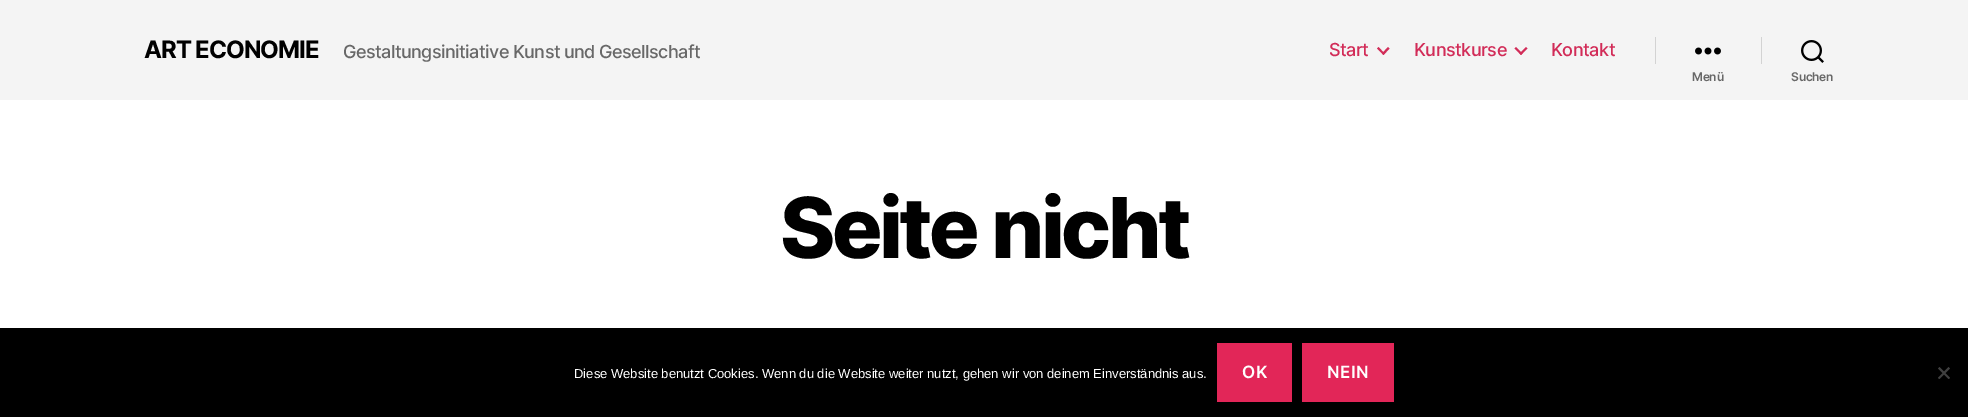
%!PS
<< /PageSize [1968 417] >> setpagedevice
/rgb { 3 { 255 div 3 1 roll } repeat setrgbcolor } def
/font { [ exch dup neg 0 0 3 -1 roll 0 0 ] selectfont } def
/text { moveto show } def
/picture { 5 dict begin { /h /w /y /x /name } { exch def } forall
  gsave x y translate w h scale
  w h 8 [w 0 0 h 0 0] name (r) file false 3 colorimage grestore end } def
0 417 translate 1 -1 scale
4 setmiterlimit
255 255 255 rgb
0 0 1968 417 rectfill
244 244 244 rgb
0 0 1968 100 rectfill
210 44 88 rgb
1377 48.5 moveto 1.5 -1.5 rlineto 6 6.5 rlineto -1 1.5 rlineto closepath fill
1382 53.5 moveto 6 -6.5 rlineto 1.5 1.5 rlineto -6 6.5 rlineto closepath fill
1514.5 48.5 moveto 1.5 -1.5 rlineto 6.5 6.5 rlineto -1.5 1.5 rlineto closepath fill
1519.5 53.5 moveto 6.5 -6.5 rlineto 1.5 1.5 rlineto -6.5 6.5 rlineto closepath fill
211 211 211 rgb
1655 37 1 27 rectfill
(img_01.rgb) 1695 47 26 8 picture
1761 37 1 27 rectfill
(img_02.rgb) 1801 40 23 23 picture
0 0 0 rgb
0 328 1968 89 rectfill
226 38 88 rgb
1217 343 75 59 rectfill
1302 343 92 59 rectfill
64 64 64 rgb
1948.5 367 moveto 1.5 1.5 rlineto -10.5 10.5 rlineto -1.5 -1 rlineto closepath fill
1938 368.5 moveto 1.5 -1.5 rlineto 10.5 11 rlineto -1.5 1 rlineto closepath fill
/Inter-Bold 24 font
0 0 0 rgb
144 58 moveto -1 0 (ART ECONOMIE) ashow
/Inter-Medium 18 font
104 104 104 rgb
343 58 moveto -0.55 0 (Gestaltungsinitiative Kunst und Gesellschaft) ashow
210 44 88 rgb
1329 56 moveto -0.5 0 (Start) ashow
1414 56 moveto -0.5 0 (Kunstkurse) ashow
1551 56 moveto -0.5 0 (Kontakt) ashow
/Inter-SemiBold 12 font
104 104 104 rgb
1692 81 moveto -0.25 0 (Menü) ashow
1791 81 moveto -0.25 0 (Suchen) ashow
/Inter-ExtraBold 84 font
0 0 0 rgb
780 258 moveto -3.5 0 (Seite nicht) ashow
/LiberationSans-Regular 13 font
255 255 255 rgb
(Diese Website benutzt Cookies. Wenn du die Website weiter nutzt, gehen wir von deinem Einverständnis aus.) 574 378 text
/Inter-SemiBold 17 font
1242 378 moveto 0.5 0 (OK) ashow
1327 378 moveto 0.5 0 (NEIN) ashow
showpage
